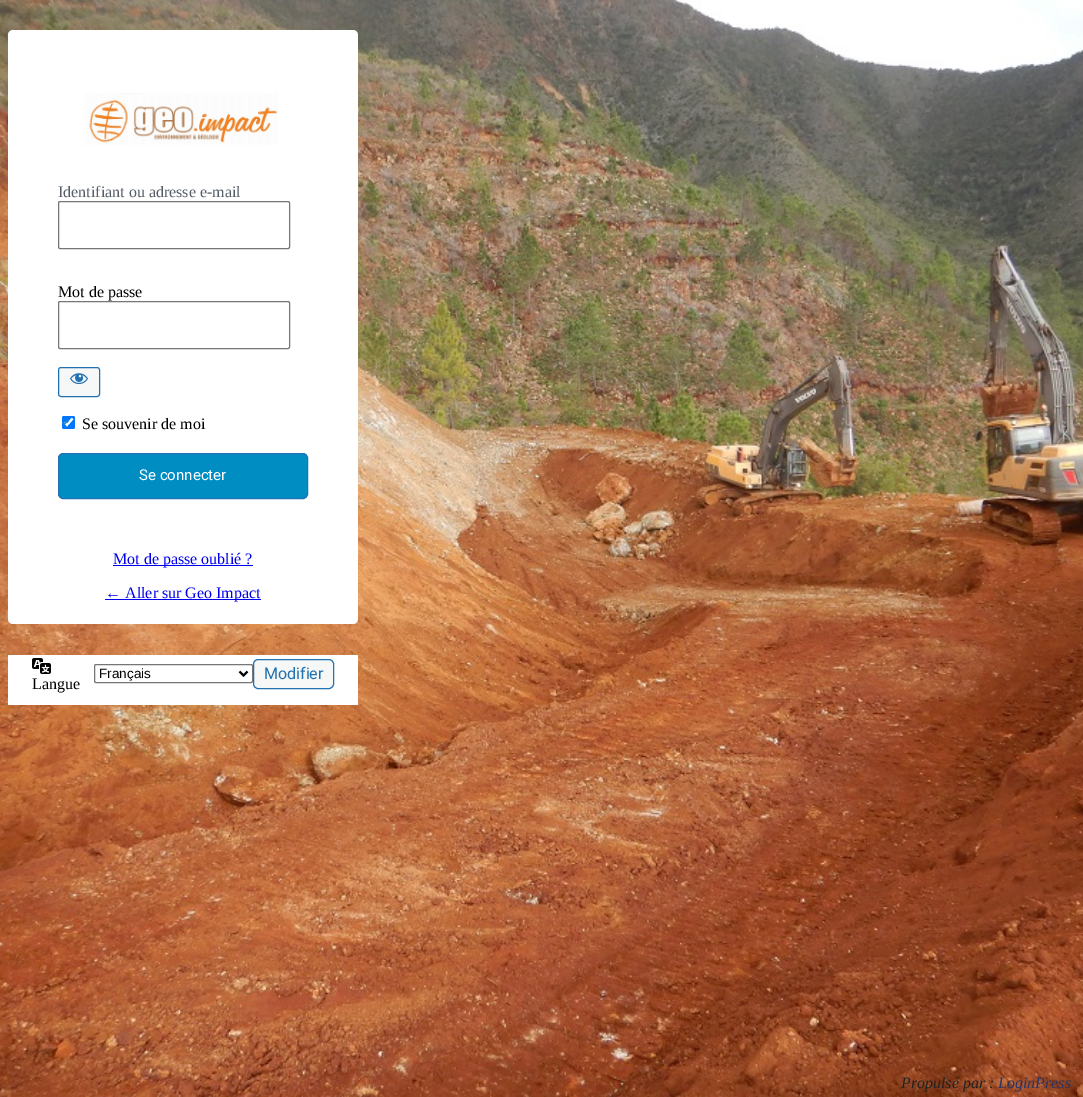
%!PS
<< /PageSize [1083 1097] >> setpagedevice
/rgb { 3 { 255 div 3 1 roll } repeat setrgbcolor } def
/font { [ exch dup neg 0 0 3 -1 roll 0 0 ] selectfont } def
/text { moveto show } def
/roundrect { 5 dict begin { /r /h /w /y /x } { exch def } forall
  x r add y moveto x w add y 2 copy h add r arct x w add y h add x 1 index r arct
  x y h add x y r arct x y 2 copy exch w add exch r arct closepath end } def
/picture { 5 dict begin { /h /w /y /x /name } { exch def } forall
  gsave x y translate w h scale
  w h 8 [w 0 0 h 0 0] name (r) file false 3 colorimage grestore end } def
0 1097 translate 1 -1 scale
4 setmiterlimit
255 255 255 rgb
0 0 1083 1097 rectfill
(img_01.rgb) 0 0 1083 1097 picture
8 30 350 594 5 roundrect fill
(img_02.rgb) 84 93 194 52 picture
118 118 118 rgb
58.5 201.5 231 47 1.5 roundrect stroke
58.5 301.5 231 47 1.5 roundrect stroke
246 247 247 rgb
58.5 367.5 41 29 2.5 roundrect gsave fill grestore
34 113 177 rgb
stroke
(img_03.rgb) 70 373 18 12 picture
0 117 255 rgb
62 416 13 13 2 roundrect fill
255 255 255 rgb
2.1 setlinewidth
64.5 422.5 moveto 2.5 2.5 rlineto 5.5 -6.5 rlineto stroke
(img_04.rgb) 61 419 8 7 picture
0 142 194 rgb
58.5 453.5 249 45 4.5 roundrect gsave fill grestore
34 113 177 rgb
1 setlinewidth
stroke
0 0 238 rgb
113 565 140 1 rectfill
105 599 156 1 rectfill
255 255 255 rgb
8 655 350 50 rectfill
118 118 118 rgb
94.5 664.5 158 18 1.5 roundrect stroke
0 0 0 rgb
2 setlinewidth
239.5 671.5 moveto 4 4 rlineto 4 -4 rlineto stroke
246 247 247 rgb
253.5 659.5 80 29 4.5 roundrect gsave fill grestore
34 113 177 rgb
1 setlinewidth
stroke
(img_05.rgb) 32 658 19 16 picture
/LiberationSerif-Regular 16 font
85 93 102 rgb
(Identifiant ou adresse e-mail) 58 197 text
0 0 0 rgb
(Mot de passe) 58 297 text
(Se souvenir de moi) 82 429 text
/Roboto-Regular 15 font
255 255 255 rgb
(Se connecter) 139 480 text
/LiberationSerif-Regular 16 font
0 0 238 rgb
(Mot de passe oublié ?) 113 564 text
(← Aller sur Geo Impact) 105 598 text
/LiberationSans-Regular 13.5 font
0 0 0 rgb
(Français) 99 678 text
/Roboto-Regular 16 font
34 113 177 rgb
(Modifier) 264 679 text
/LiberationSerif-Regular 16 font
0 0 0 rgb
(Langue) 32 689 text
/LiberationSerif-Italic 16 font
34 34 34 rgb
(Propulsé par :) 901 1088 text
38 52 102 rgb
(LoginPress) 998 1088 text
showpage
